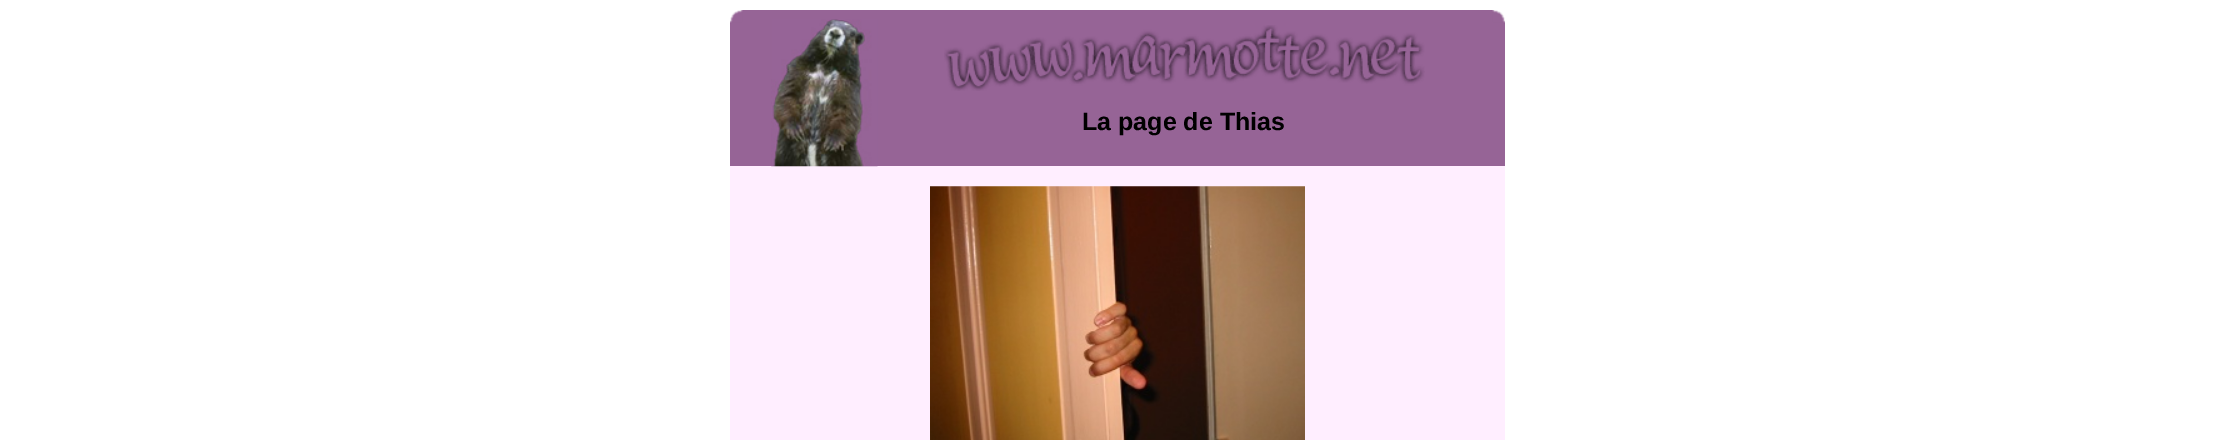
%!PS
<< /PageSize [2235 440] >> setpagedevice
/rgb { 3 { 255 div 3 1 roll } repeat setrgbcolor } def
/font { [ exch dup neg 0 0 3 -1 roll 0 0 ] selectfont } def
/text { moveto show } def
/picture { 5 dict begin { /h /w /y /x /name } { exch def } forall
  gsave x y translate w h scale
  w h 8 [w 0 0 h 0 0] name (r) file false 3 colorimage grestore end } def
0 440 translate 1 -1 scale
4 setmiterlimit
255 255 255 rgb
0 0 2235 440 rectfill
255 238 255 rgb
730 166 775 274 rectfill
150 100 150 rgb
730 10 775 156 rectfill
(img_01.rgb) 730 10 13 13 picture
(img_02.rgb) 1492 10 13 13 picture
(img_03.rgb) 771 19 107 148 picture
(img_04.rgb) 944 25 481 66 picture
(img_05.rgb) 930 186 375 254 picture
/LiberationSans-Bold 25 font
0 0 0 rgb
(La page de Thias) 1082 130 text
showpage
